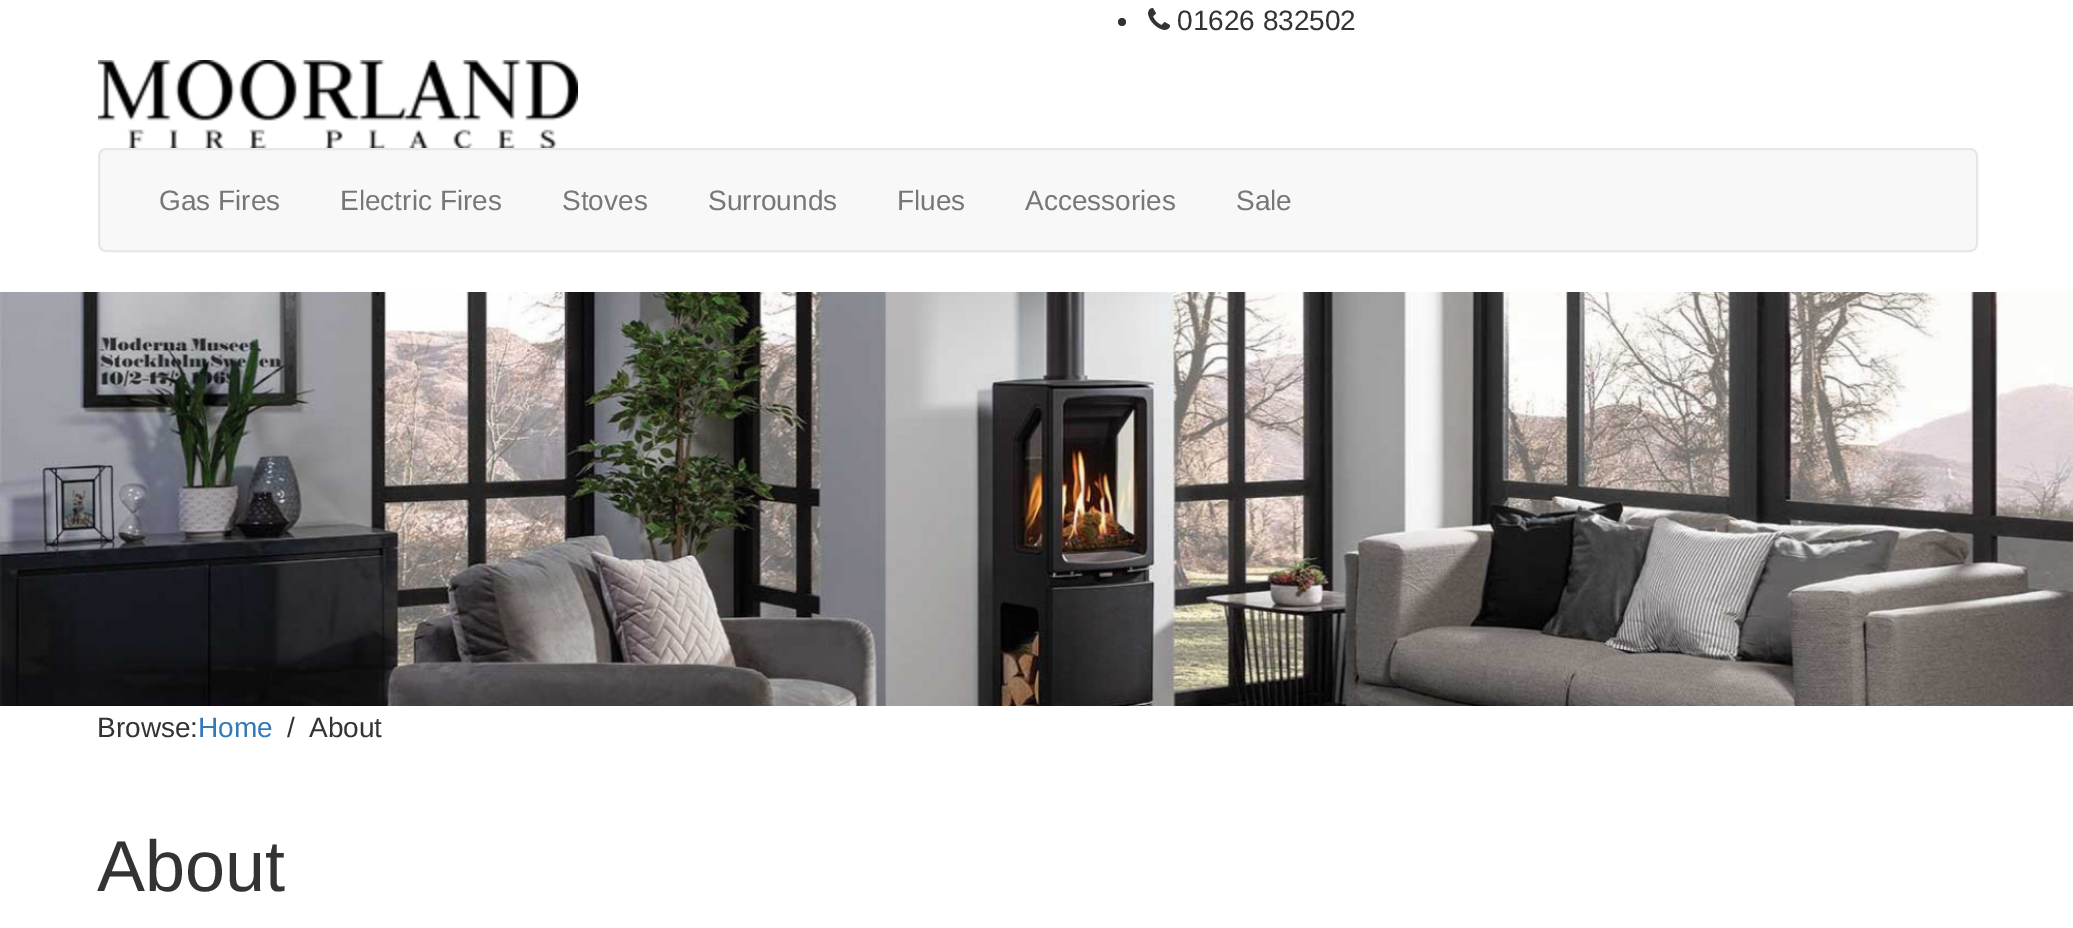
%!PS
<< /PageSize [2073 928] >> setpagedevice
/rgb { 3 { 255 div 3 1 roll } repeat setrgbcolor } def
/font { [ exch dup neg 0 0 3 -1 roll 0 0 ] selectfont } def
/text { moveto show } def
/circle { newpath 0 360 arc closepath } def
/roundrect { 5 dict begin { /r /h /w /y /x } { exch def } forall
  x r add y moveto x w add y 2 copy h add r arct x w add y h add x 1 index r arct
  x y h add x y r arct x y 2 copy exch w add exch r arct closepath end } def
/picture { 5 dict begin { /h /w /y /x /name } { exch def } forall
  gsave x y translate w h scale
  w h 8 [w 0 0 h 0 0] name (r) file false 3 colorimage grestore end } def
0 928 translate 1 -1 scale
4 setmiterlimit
255 255 255 rgb
0 0 2073 928 rectfill
51 51 51 rgb
1122 22 4 circle fill
(img_01.rgb) 1148 8 22 22 picture
(img_02.rgb) 98 60 480 88 picture
248 248 248 rgb
99 149 1878 102 7 roundrect gsave fill grestore
231 231 231 rgb
2 setlinewidth
stroke
(img_03.rgb) 0 292 2073 414 picture
/LiberationSans-Regular 28 font
51 51 51 rgb
(01626 832502) 1177 30 text
119 119 119 rgb
(Gas Fires) 159 210 text
(Electric Fires) 340 210 text
(Stoves) 562 210 text
(Surrounds) 708 210 text
(Flues) 897 210 text
(Accessories) 1025 210 text
(Sale) 1236 210 text
51 51 51 rgb
(Browse:) 97 737 text
51 122 183 rgb
(Home) 198 737 text
51 51 51 rgb
(/) 287 737 text
(About) 309 737 text
/LiberationSans-Regular 72 font
(About) 97 891 text
showpage
